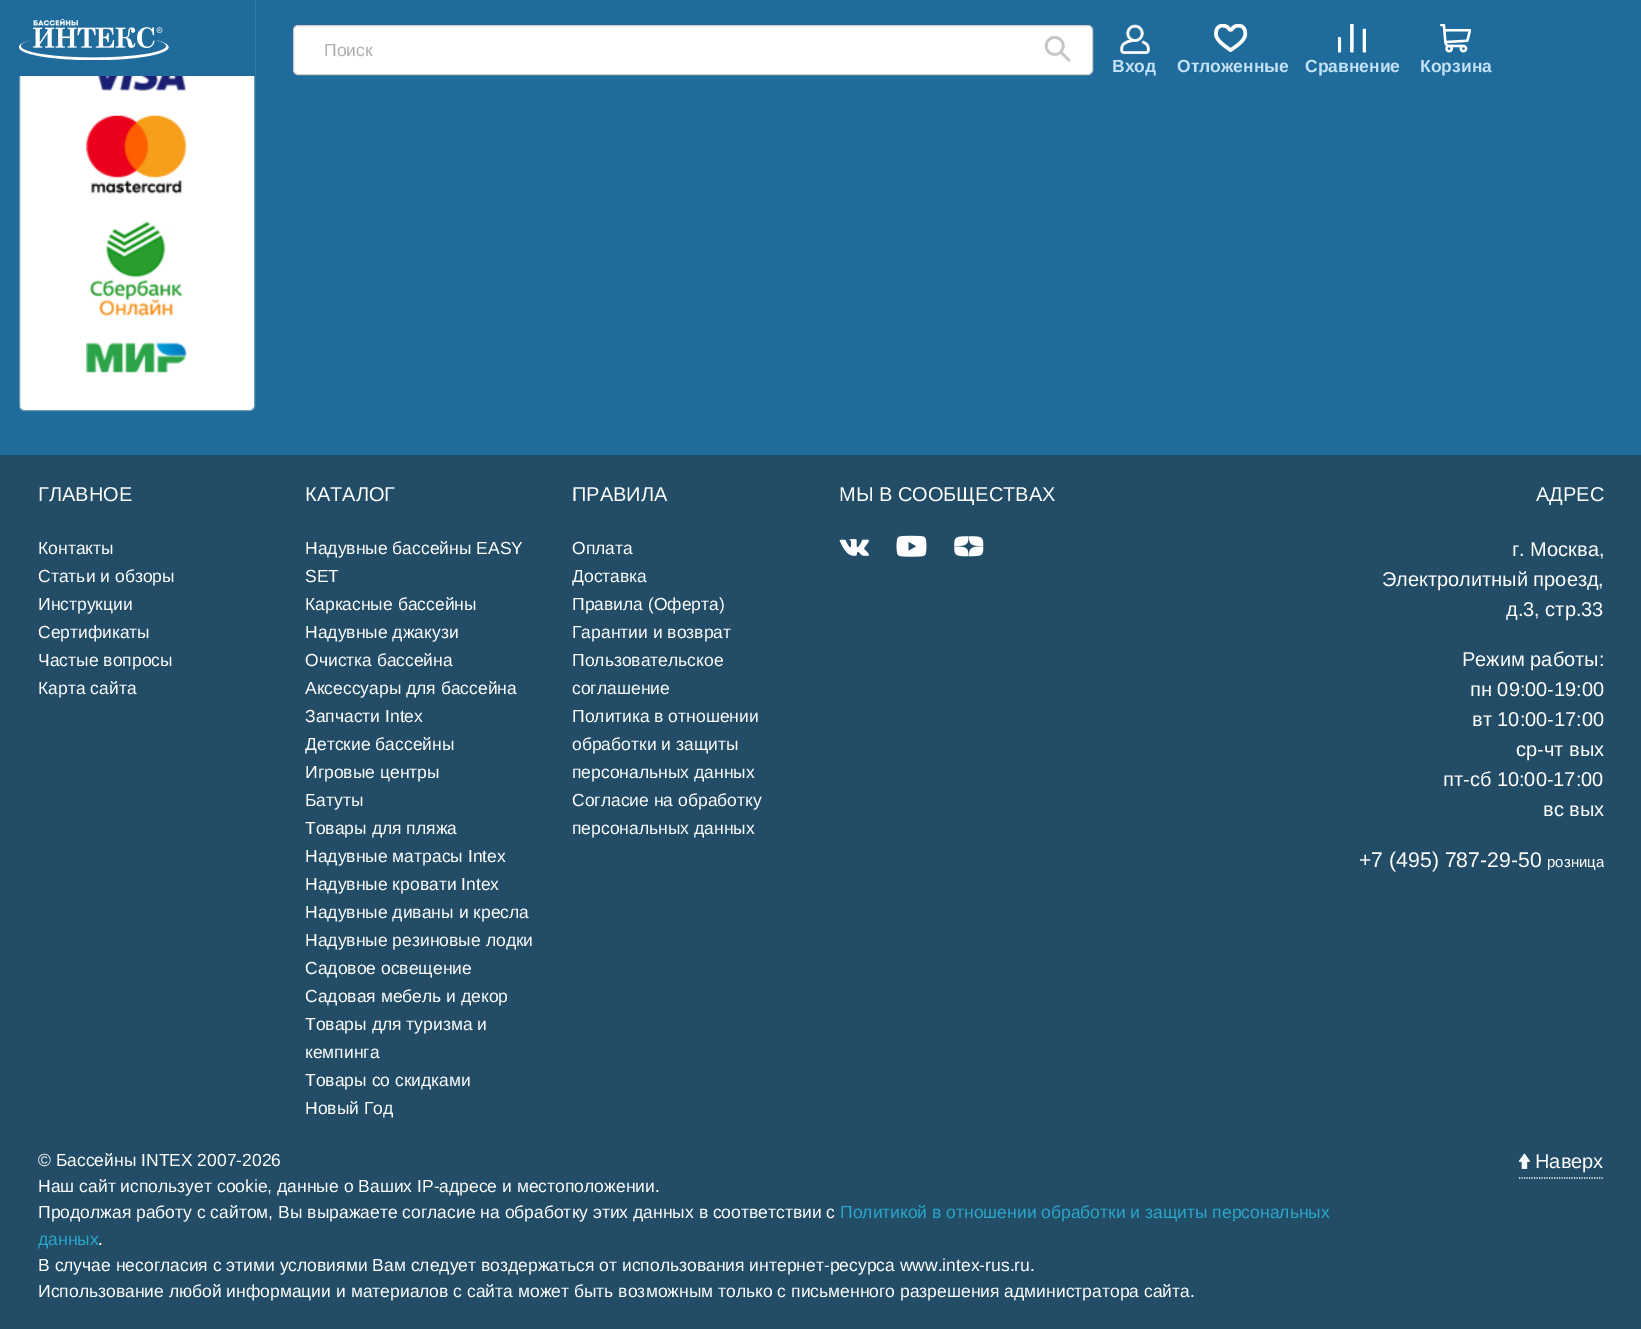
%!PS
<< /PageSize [1641 1329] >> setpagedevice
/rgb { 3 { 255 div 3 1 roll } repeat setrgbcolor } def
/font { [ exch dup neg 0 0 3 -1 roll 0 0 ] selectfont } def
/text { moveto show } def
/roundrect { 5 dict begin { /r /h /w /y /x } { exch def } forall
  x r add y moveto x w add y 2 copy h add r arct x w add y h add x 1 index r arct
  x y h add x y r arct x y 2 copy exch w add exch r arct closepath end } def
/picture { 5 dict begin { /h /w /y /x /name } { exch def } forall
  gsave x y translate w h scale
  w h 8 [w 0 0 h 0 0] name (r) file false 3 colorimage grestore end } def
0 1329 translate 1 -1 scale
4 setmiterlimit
31 107 156 rgb
0 0 1641 1329 rectfill
255 255 255 rgb
19.5 -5.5 235 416 4.5 roundrect gsave fill grestore
104 154 181 rgb
stroke
(img_01.rgb) 98 76 89 15 picture
(img_02.rgb) 86 115 101 79 picture
(img_03.rgb) 89 221 94 96 picture
(img_04.rgb) 86 342 101 31 picture
31 107 156 rgb
19 0 236 76 rectfill
(img_05.rgb) 19 19 150 41 picture
255 255 255 rgb
293.5 25.5 799 49 4.5 roundrect gsave fill grestore
204 204 204 rgb
stroke
(img_06.rgb) 1044 36 27 26 picture
(img_07.rgb) 1120 24 30 31 picture
(img_08.rgb) 1214 24 34 28 picture
(img_09.rgb) 1338 24 28 29 picture
(img_10.rgb) 1440 24 31 29 picture
35 77 102 rgb
0 455 1641 874 rectfill
(img_11.rgb) 839 539 30 17 picture
(img_12.rgb) 896 535 31 22 picture
(img_13.rgb) 954 536 30 21 picture
255 255 255 rgb
1.2 setlinewidth
[1.25 1.25] 0 setdash
1519 1178 moveto 85 0 rlineto stroke
(img_14.rgb) 1518 1153 13 16 picture
/LiberationSans-Regular 17.5 font
173 174 173 rgb
(Поиск) 324 56 text
/LiberationSans-Bold 17.5 font
196 226 245 rgb
(Вход) 1112 72 text
(Отложенные) 1177 72 text
(Сравнение) 1305 72 text
(Корзина) 1420 72 text
/LiberationSans-Regular 20 font
255 255 255 rgb
(ГЛАВНОЕ) 38 501 text
/LiberationSans-Regular 17.5 font
(Контакты) 38 554 text
(Статьи и обзоры) 38 582 text
(Инструкции) 38 610 text
(Сертификаты) 38 638 text
(Частые вопросы) 38 666 text
(Карта сайта) 38 694 text
/LiberationSans-Regular 20 font
(КАТАЛОГ) 305 501 text
/LiberationSans-Regular 17.5 font
(Надувные бассейны EASY) 305 554 text
(SET) 305 582 text
(Каркасные бассейны) 305 610 text
(Надувные джакузи) 305 638 text
(Очистка бассейна) 305 666 text
(Аксессуары для бассейна) 305 694 text
(Запчасти Intex) 305 722 text
(Детские бассейны) 305 750 text
(Игровые центры) 305 778 text
(Батуты) 305 806 text
(Товары для пляжа) 305 834 text
(Надувные матрасы Intex) 305 862 text
(Надувные кровати Intex) 305 890 text
(Надувные диваны и кресла) 305 918 text
(Надувные резиновые лодки) 305 946 text
(Садовое освещение) 305 974 text
(Садовая мебель и декор) 305 1002 text
(Товары для туризма и) 305 1030 text
(кемпинга) 305 1058 text
(Товары со скидками) 305 1086 text
(Новый Год) 305 1114 text
/LiberationSans-Regular 20 font
(ПРАВИЛА) 572 501 text
/LiberationSans-Regular 17.5 font
(Оплата) 572 554 text
(Доставка) 572 582 text
(Правила \(Оферта\)) 572 610 text
(Гарантии и возврат) 572 638 text
(Пользовательское) 572 666 text
(соглашение) 572 694 text
(Политика в отношении) 572 722 text
(обработки и защиты) 572 750 text
(персональных данных) 572 778 text
(Согласие на обработку) 572 806 text
(персональных данных) 572 834 text
/LiberationSans-Regular 20 font
(МЫ В СООБЩЕСТВАХ) 839 501 text
(АДРЕС) 1536 501 text
(г. Москва,) 1512 556 text
(Электролитный проезд,) 1382 586 text
(д.3, стр.33) 1506 616 text
(Режим работы:) 1462 666 text
(пн 09:00-19:00) 1470 696 text
(вт 10:00-17:00) 1472 726 text
(ср-чт вых) 1516 756 text
(пт-сб 10:00-17:00) 1443 786 text
(вс вых) 1543 816 text
/LiberationSans-Regular 21.25 font
(+7 \(495\) 787-29-50) 1359 867 text
/LiberationSans-Regular 15 font
(розница) 1547 867 text
/LiberationSans-Regular 17.5 font
(© Бассейны INTEX 2007-2026) 38 1166 text
(Наш сайт использует cookie, данные о Ваших IP-адресе и местоположении.) 38 1192 text
(Продолжая работу с сайтом, Вы выражаете согласие на обработку этих данных в соответствии с) 38 1218 text
43 166 203 rgb
(Политикой в отношении обработки и защиты персональных) 840 1218 text
(данных) 38 1245 text
255 255 255 rgb
(.) 98 1245 text
(В случае несогласия с этими условиями Вам следует воздержаться от использования интернет-ресурса www.intex-rus.ru.) 38 1271 text
(Использование любой информации и материалов с сайта может быть возможным только с письменного разрешения администратора сайта.) 38 1297 text
/LiberationSans-Regular 20 font
(Наверх) 1535 1168 text
showpage
